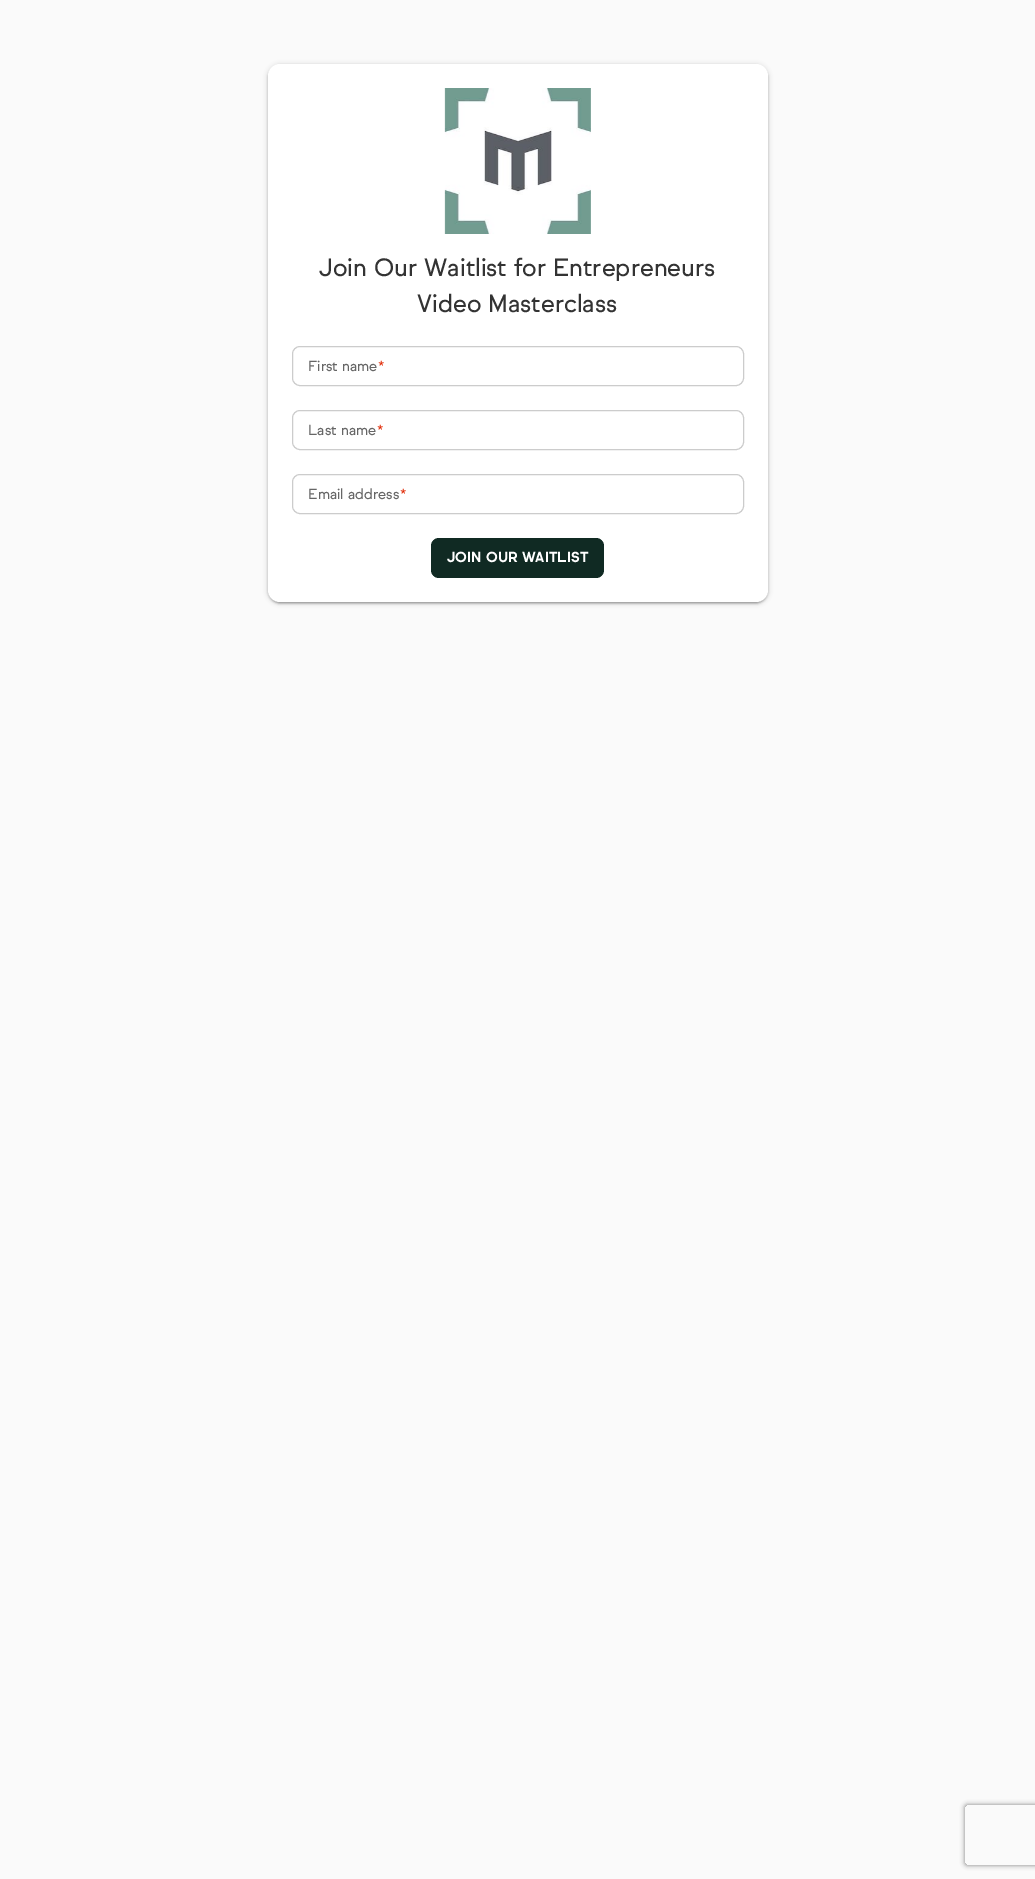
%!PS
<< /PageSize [1035 1879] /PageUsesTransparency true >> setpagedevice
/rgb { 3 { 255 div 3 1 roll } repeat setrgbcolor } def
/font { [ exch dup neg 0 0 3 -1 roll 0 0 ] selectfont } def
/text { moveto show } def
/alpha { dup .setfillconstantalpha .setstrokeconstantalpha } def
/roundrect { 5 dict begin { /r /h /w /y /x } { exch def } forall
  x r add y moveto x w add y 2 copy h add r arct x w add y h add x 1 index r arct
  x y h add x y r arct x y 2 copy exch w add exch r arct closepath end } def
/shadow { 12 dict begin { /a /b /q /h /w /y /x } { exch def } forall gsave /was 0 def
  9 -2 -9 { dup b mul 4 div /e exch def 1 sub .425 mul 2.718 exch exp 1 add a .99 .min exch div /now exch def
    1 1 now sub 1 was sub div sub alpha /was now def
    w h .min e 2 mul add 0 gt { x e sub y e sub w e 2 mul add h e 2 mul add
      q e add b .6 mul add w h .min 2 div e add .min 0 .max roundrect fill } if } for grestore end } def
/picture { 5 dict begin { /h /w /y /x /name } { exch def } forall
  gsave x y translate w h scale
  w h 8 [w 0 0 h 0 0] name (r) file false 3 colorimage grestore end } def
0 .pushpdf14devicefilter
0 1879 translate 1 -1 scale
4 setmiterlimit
250 250 250 rgb
0 0 1035 1879 rectfill
0 0 0 rgb
268 65 500 538 12 2.5 0.2 shadow
270 69 496 534 10 0.5 0.12 shadow
268 66 500 538 12 1 0.14 shadow
255 255 255 rgb
268 64 500 538 12 roundrect fill
(img_01.rgb) 444 88 147 146 picture
204 204 204 rgb
292.5 346.5 451 39 7.5 roundrect stroke
292.5 410.5 451 39 7.5 roundrect stroke
292.5 474.5 451 39 7.5 roundrect stroke
16 42 35 rgb
431 538 173 40 8 roundrect fill
gsave
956 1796 moveto 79 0 rlineto 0 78 rlineto -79 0 rlineto closepath 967 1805 moveto 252 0 rlineto 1 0 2 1 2 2 rcurveto 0 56 rlineto 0 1 -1 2 -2 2 rcurveto -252 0 rlineto -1 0 -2 -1 -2 -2 rcurveto 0 -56 rlineto 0 -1 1 -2 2 -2 rcurveto closepath eoclip newpath
128 128 128 rgb
965 1805 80 60 2 2.5 1 shadow
grestore
/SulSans-Regular 24 font
51 51 51 rgb
(Join Our Waitlist for Entrepreneurs) 319 276 text
(Video Masterclass) 417 312 text
/SulSans-Regular 14 font
102 102 102 rgb
(First name) 308 371 text
224 37 0 rgb
(*) 378 371 text
102 102 102 rgb
(Last name) 308 435 text
224 37 0 rgb
(*) 377 435 text
102 102 102 rgb
(Email address) 308 499 text
224 37 0 rgb
(*) 400 499 text
/SulSans-Bold 14 font
255 255 255 rgb
(JOIN OUR WAITLIST) 447 562 text
.poppdf14devicefilter showpage
